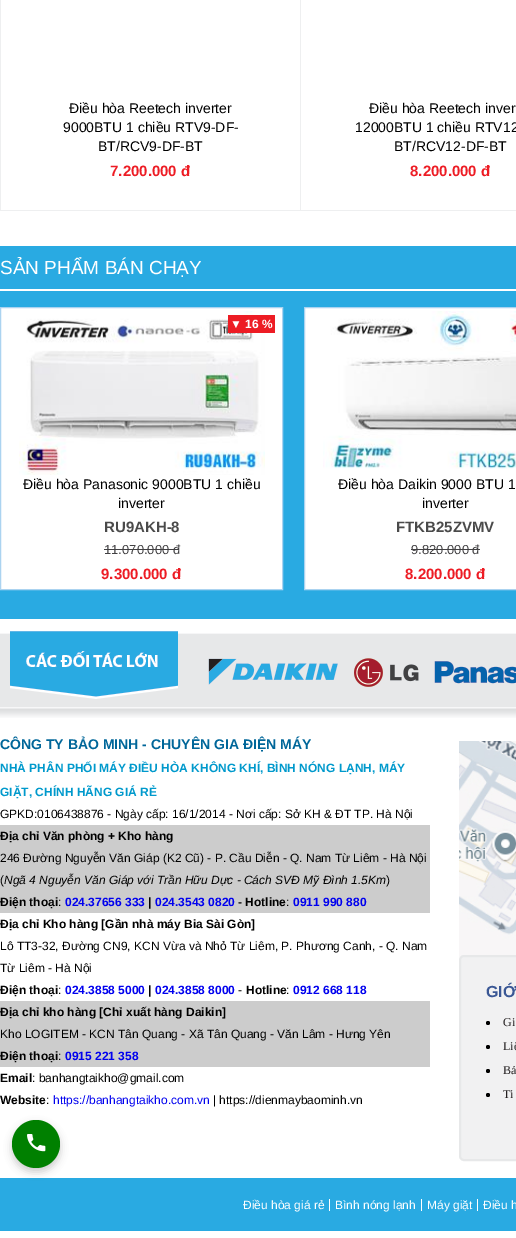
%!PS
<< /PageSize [516 1238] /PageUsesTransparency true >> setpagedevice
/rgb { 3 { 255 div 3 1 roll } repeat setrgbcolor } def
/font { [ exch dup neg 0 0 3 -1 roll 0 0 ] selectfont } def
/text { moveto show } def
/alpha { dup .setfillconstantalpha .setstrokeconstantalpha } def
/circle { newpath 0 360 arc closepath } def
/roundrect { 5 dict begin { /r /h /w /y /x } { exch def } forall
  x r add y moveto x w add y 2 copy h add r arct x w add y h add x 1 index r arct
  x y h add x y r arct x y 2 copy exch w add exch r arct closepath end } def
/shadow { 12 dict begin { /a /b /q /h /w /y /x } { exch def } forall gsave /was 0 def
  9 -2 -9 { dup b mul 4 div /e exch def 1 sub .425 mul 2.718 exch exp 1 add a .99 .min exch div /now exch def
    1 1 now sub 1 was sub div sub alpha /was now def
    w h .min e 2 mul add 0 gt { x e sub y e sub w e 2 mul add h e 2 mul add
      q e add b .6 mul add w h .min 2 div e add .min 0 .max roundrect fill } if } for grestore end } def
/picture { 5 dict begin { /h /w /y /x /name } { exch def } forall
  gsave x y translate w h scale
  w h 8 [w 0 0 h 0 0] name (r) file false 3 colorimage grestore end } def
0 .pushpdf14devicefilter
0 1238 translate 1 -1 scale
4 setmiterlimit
255 255 255 rgb
0 0 516 1238 rectfill
238 239 240 rgb
0 0 1 211 rectfill
300 0 1 211 rectfill
1 210 515 1 rectfill
41 170 226 rgb
0 246 516 373 rectfill
255 255 255 rgb
0 289 516 2 rectfill
0.5 307.5 moveto 282 0 rlineto 0 282 rlineto -282 0 rlineto closepath gsave fill grestore
171 211 240 rgb
stroke
(img_01.rgb) 19 311 246 164 picture
237 28 36 rgb
228 315 47 18 rectfill
65 64 66 rgb
104 549 75 1 rectfill
255 255 255 rgb
304.5 307.5 moveto 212 0 rlineto 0 282 rlineto -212 0 rlineto closepath gsave fill grestore
171 211 240 rgb
stroke
(img_02.rgb) 323 311 193 158 picture
65 64 66 rgb
411 549 69 1 rectfill
(img_03.rgb) 0 633 516 85 picture
(img_04.rgb) 10 631 506 68 picture
204 204 204 rgb
0 825 430 88 rectfill
0 1001 430 66 rectfill
(img_05.rgb) 459 741 57 216 picture
241 241 242 rgb
460 956 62 204 4 roundrect gsave fill grestore
231 232 233 rgb
2 setlinewidth
stroke
0 0 0 rgb
488 1023 2 circle fill
488 1047 2 circle fill
488 1071 2 circle fill
488 1095 2 circle fill
41 170 226 rgb
0 1178 516 53 rectfill
0 0 0 rgb
12 1124 48 48 24 4 0.2 shadow
0 128 0 rgb
36 1144 24 circle fill
(img_06.rgb) 27 1134 19 18 picture
255 255 255 rgb
329 1199 1 12 rectfill
421 1199 1 12 rectfill
477 1199 1 12 rectfill
/LiberationSans-Regular 14 font
0 0 0 rgb
(Điều hòa Reetech inverter) 69 113 text
(9000BTU 1 chiều RTV9-DF-) 63 132 text
(BT/RCV9-DF-BT) 98 151 text
/LiberationSans-Bold 15 font
237 28 36 rgb
(7.200.000 đ) 110 176 text
/LiberationSans-Regular 14 font
0 0 0 rgb
(Điều hòa Reetech inver) 369 113 text
(12000BTU 1 chiều RTV12) 355 132 text
(BT/RCV12-DF-BT) 394 151 text
/LiberationSans-Bold 15 font
237 28 36 rgb
(8.200.000 đ) 410 176 text
/LiberationSans-Regular 19 font
255 255 255 rgb
(SẢN PHẨM BÁN CHẠY) 0 274 text
/LiberationSans-Bold 12 font
(▼ 16 %) 230 328 text
/LiberationSans-Regular 14 font
0 0 0 rgb
(Điều hòa Panasonic 9000BTU 1 chiều) 23 489 text
(inverter) 118 508 text
/LiberationSans-Bold 15 font
74 74 74 rgb
(RU9AKH-8) 104 532 text
/LiberationSans-Regular 13 font
65 64 66 rgb
(11.070.000 đ) 104 554 text
/LiberationSans-Bold 15 font
237 28 36 rgb
(9.300.000 đ) 101 579 text
/LiberationSans-Regular 14 font
0 0 0 rgb
(Điều hòa Daikin 9000 BTU 1) 338 489 text
(inverter) 422 508 text
/LiberationSans-Bold 15 font
74 74 74 rgb
(FTKB25ZVMV) 396 532 text
/LiberationSans-Regular 13 font
65 64 66 rgb
(9.820.000 đ) 411 554 text
/LiberationSans-Bold 15 font
237 28 36 rgb
(8.200.000 đ) 405 579 text
/LiberationSans-Bold 14 font
0 102 153 rgb
(CÔNG TY BẢO MINH - CHUYÊN GIA ĐIỆN MÁY) 0 749 text
/LiberationSans-Bold 12 font
0 153 204 rgb
(NHÀ PHÂN PHỐI MÁY ĐIỀU HÒA KHÔNG KHÍ, BÌNH NÓNG LẠNH, MÁY) 0 772 text
(GIẶT, CHÍNH HÃNG GIÁ RẺ) 0 796 text
/LiberationSans-Regular 12 font
0 0 0 rgb
(GPKD:0106438876 - Ngày cấp: 16/1/2014 - Nơi cấp: Sở KH & ĐT TP. Hà Nội) 0 818 text
/LiberationSans-Bold 12 font
(Địa chỉ Văn phòng + Kho hàng) 0 840 text
/LiberationSans-Regular 12 font
(246 Đường Nguyễn Văn Giáp \(K2 Cũ\) - P. Cầu Diễn - Q. Nam Từ Liêm - Hà Nội) 0 862 text
(\() 0 884 text
/LiberationSans-Italic 12 font
(Ngã 4 Nguyễn Văn Giáp với Trần Hữu Dực - Cách SVĐ Mỹ Đình 1.5Km) 4 884 text
/LiberationSans-Regular 12 font
(\)) 386 884 text
/LiberationSans-Bold 12 font
(Điện thoại) 0 906 text
/LiberationSans-Regular 12 font
(:) 58 906 text
/LiberationSans-Bold 12 font
0 0 238 rgb
(024.37656 333) 65 906 text
0 0 0 rgb
(|) 148 906 text
0 0 238 rgb
(024.3543 0820) 155 906 text
0 0 0 rgb
(- Hotline) 238 906 text
/LiberationSans-Regular 12 font
(:) 286 906 text
/LiberationSans-Bold 12 font
0 0 238 rgb
(0911 990 880) 293 906 text
0 0 0 rgb
(Địa chỉ Kho hàng [Gần nhà máy Bia Sài Gòn]) 0 928 text
/LiberationSans-Regular 12 font
(Lô TT3-32, Đường CN9, KCN Vừa và Nhỏ Từ Liêm, P. Phương Canh, - Q. Nam) 0 950 text
(Từ Liêm - Hà Nội) 0 972 text
/LiberationSans-Bold 12 font
(Điện thoại) 0 994 text
/LiberationSans-Regular 12 font
(:) 58 994 text
/LiberationSans-Bold 12 font
0 0 238 rgb
(024.3858 5000) 65 994 text
0 0 0 rgb
(|) 148 994 text
0 0 238 rgb
(024.3858 8000) 155 994 text
/LiberationSans-Regular 12 font
0 0 0 rgb
(-) 238 994 text
/LiberationSans-Bold 12 font
(Hotline) 246 994 text
/LiberationSans-Regular 12 font
(:) 286 994 text
/LiberationSans-Bold 12 font
0 0 238 rgb
(0912 668 118) 293 994 text
0 0 0 rgb
(Địa chỉ kho hàng [Chỉ xuất hàng Daikin]) 0 1016 text
/LiberationSans-Regular 12 font
(Kho LOGITEM - KCN Tân Quang - Xã Tân Quang - Văn Lâm - Hưng Yên) 0 1038 text
/LiberationSans-Bold 12 font
(Điện thoại) 0 1060 text
/LiberationSans-Regular 12 font
(:) 58 1060 text
/LiberationSans-Bold 12 font
0 0 238 rgb
(0915 221 358) 65 1060 text
0 0 0 rgb
(Email) 0 1082 text
/LiberationSans-Regular 12 font
(: banhangtaikho@gmail.com) 32 1082 text
/LiberationSans-Bold 12 font
(Website) 0 1104 text
/LiberationSans-Regular 12 font
(:) 46 1104 text
0 0 238 rgb
(https://banhangtaikho.com.vn) 53 1104 text
0 0 0 rgb
(| https://dienmaybaominh.vn) 213 1104 text
/LiberationSans-Bold 16 font
58 87 149 rgb
(GIỚ) 486 997 text
/LiberationSerif-Regular 12 font
35 31 32 rgb
(Gi) 503 1026 text
(Liê) 503 1050 text
(Bả) 503 1074 text
(Ti) 503 1098 text
/LiberationSans-Regular 12 font
255 255 255 rgb
(Điều hòa giá rẻ) 243 1209 text
(Bình nóng lạnh) 335 1209 text
(Máy giặt) 427 1209 text
(Điều h) 483 1209 text
.poppdf14devicefilter showpage
